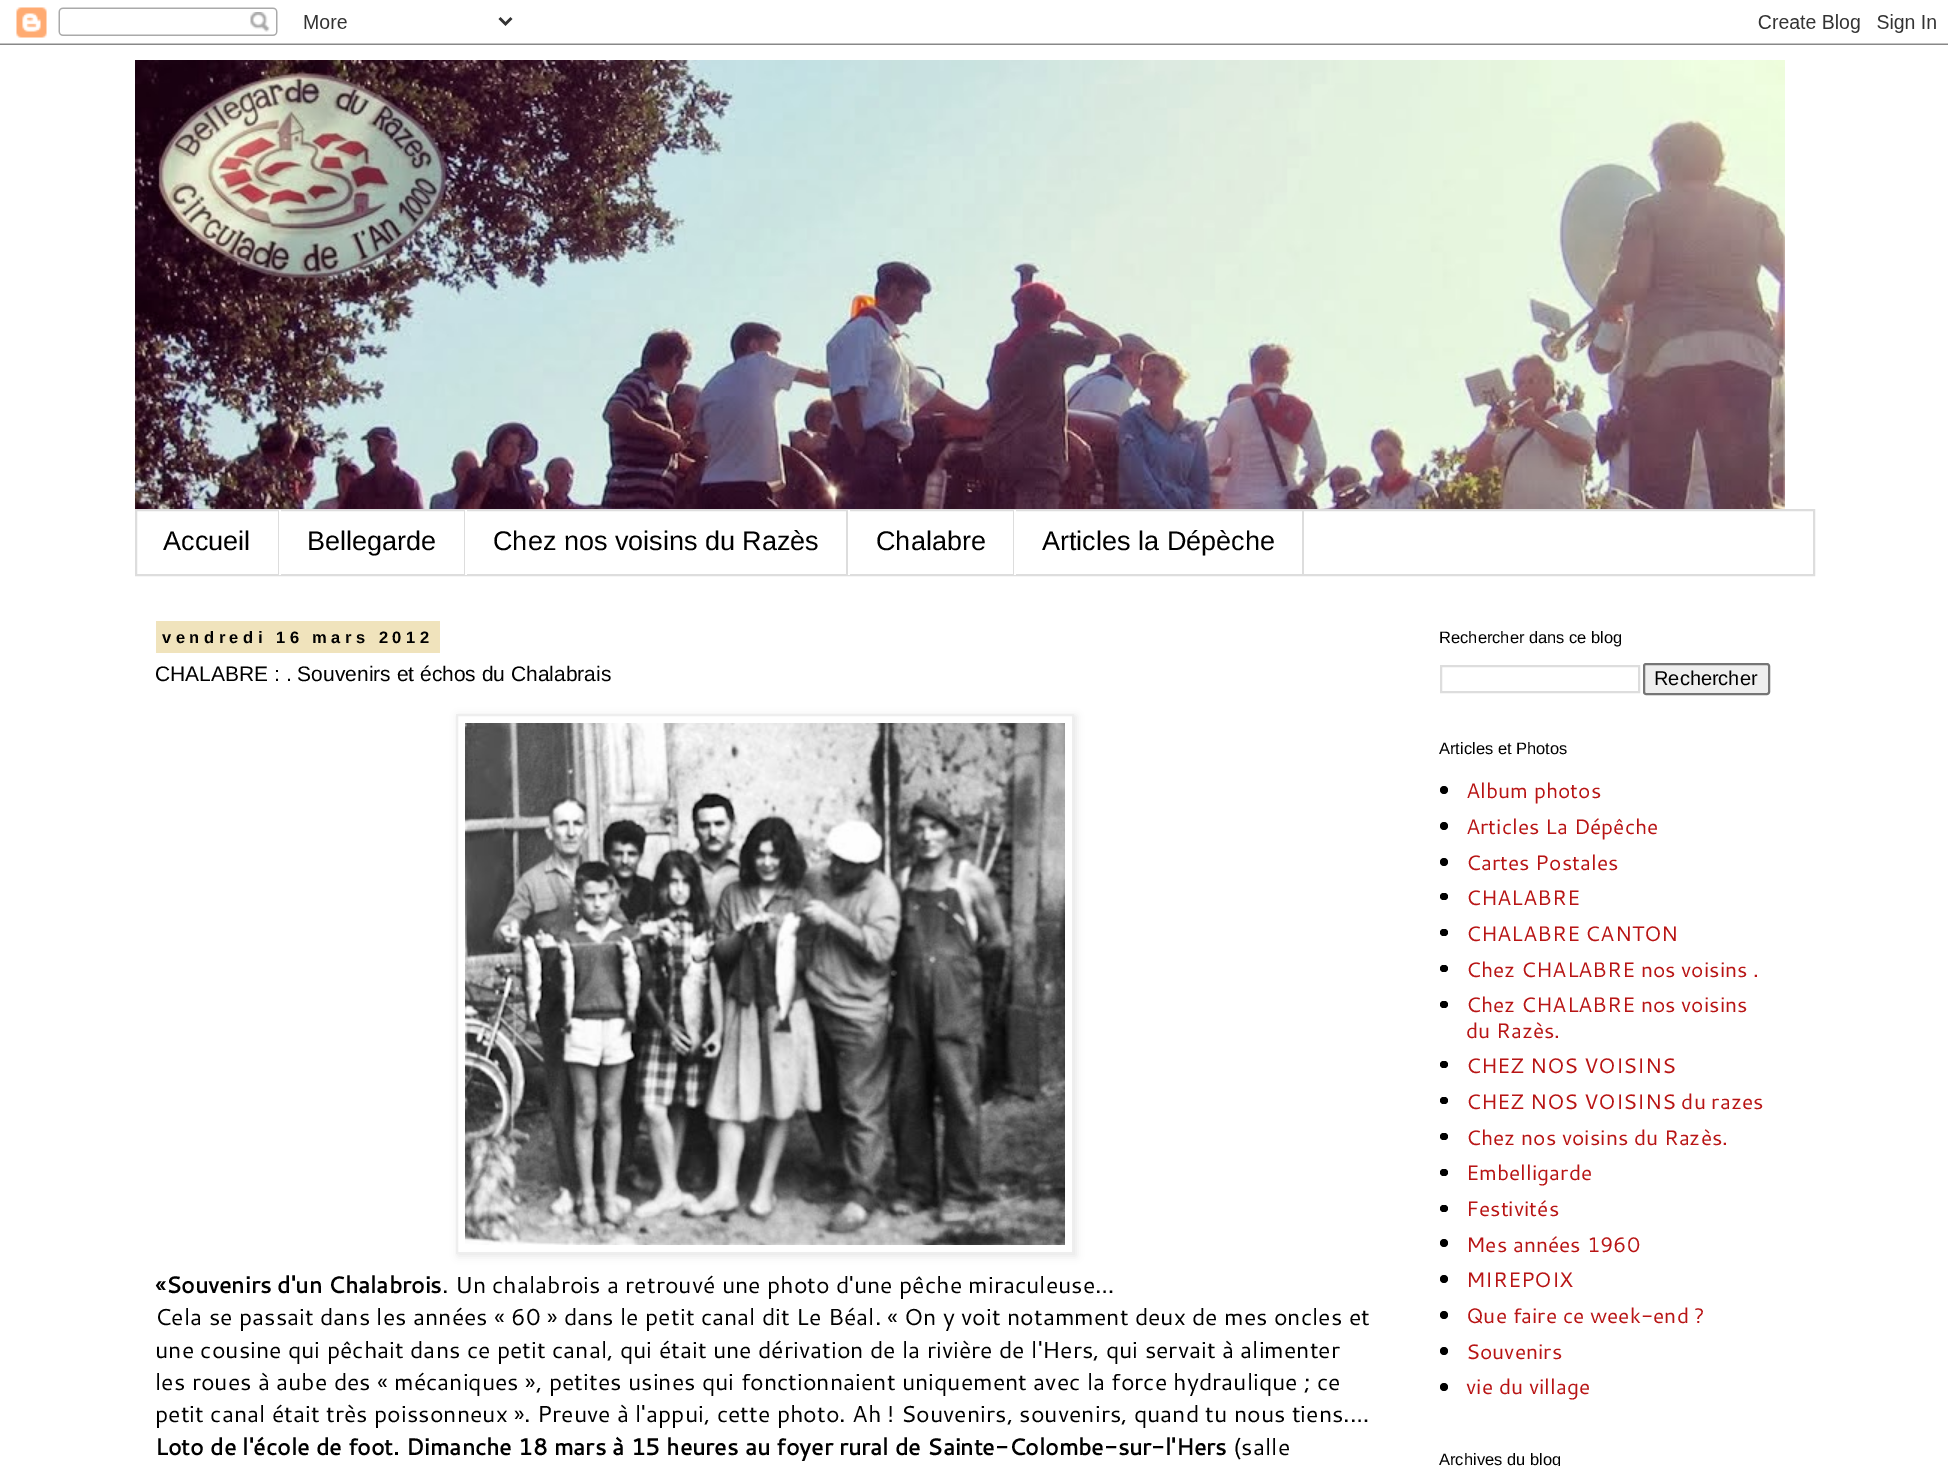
%!PS
<< /PageSize [1948 1466] /PageUsesTransparency true >> setpagedevice
/rgb { 3 { 255 div 3 1 roll } repeat setrgbcolor } def
/font { [ exch dup neg 0 0 3 -1 roll 0 0 ] selectfont } def
/text { moveto show } def
/alpha { dup .setfillconstantalpha .setstrokeconstantalpha } def
/circle { newpath 0 360 arc closepath } def
/roundrect { 5 dict begin { /r /h /w /y /x } { exch def } forall
  x r add y moveto x w add y 2 copy h add r arct x w add y h add x 1 index r arct
  x y h add x y r arct x y 2 copy exch w add exch r arct closepath end } def
/shadow { 12 dict begin { /a /b /q /h /w /y /x } { exch def } forall gsave /was 0 def
  9 -2 -9 { dup b mul 4 div /e exch def 1 sub .425 mul 2.718 exch exp 1 add a .99 .min exch div /now exch def
    1 1 now sub 1 was sub div sub alpha /was now def
    w h .min e 2 mul add 0 gt { x e sub y e sub w e 2 mul add h e 2 mul add
      q e add b .6 mul add w h .min 2 div e add .min 0 .max roundrect fill } if } for grestore end } def
/picture { 5 dict begin { /h /w /y /x /name } { exch def } forall
  gsave x y translate w h scale
  w h 8 [w 0 0 h 0 0] name (r) file false 3 colorimage grestore end } def
0 .pushpdf14devicefilter
0 1466 translate 1 -1 scale
4 setmiterlimit
255 255 255 rgb
0 0 1948 1466 rectfill
(img_01.rgb) 0 7 1948 38 picture
(img_02.rgb) 135 60 1650 449 picture
221 221 221 rgb
2 setlinewidth
136 510 1678 65 rectstroke
278 510 1 65 rectfill
464 510 1 65 rectfill
255 255 255 rgb
279 510 2 65 rectfill
221 221 221 rgb
846 510 2 65 rectfill
255 255 255 rgb
465 510 2 65 rectfill
221 221 221 rgb
1013 510 1 65 rectfill
255 255 255 rgb
848 510 2 65 rectfill
221 221 221 rgb
1302 510 2 65 rectfill
255 255 255 rgb
1014 510 2 65 rectfill
240 227 188 rgb
156 621 284 32 rectfill
gsave
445 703 moveto 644 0 rlineto 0 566 rlineto -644 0 rlineto closepath 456 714 moveto 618 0 rlineto 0 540 rlineto -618 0 rlineto closepath eoclip newpath
0 0 0 rgb
458 716 618 540 0 4 0.1 shadow
grestore
238 238 238 rgb
457 715 616 538 rectstroke
(img_03.rgb) 465 723 600 522 picture
221 221 221 rgb
1441 666 198 26 rectstroke
239 239 239 rgb
1644 664 125 30 2 roundrect gsave fill grestore
118 118 118 rgb
stroke
0 0 0 rgb
1444 790 4 circle fill
1444 826 4 circle fill
1444 862 4 circle fill
1440 893 8 7 3.5 roundrect fill
1440 929 8 7 3.5 roundrect fill
1440 965 8 7 3.5 roundrect fill
1440 1001 8 7 3.5 roundrect fill
1440 1061 8 7 3.5 roundrect fill
1440 1097 8 7 3.5 roundrect fill
1440 1133 8 7 3.5 roundrect fill
1440 1169 8 7 3.5 roundrect fill
1440 1205 8 7 3.5 roundrect fill
1444 1243 4 circle fill
1444 1279 4 circle fill
1444 1315 4 circle fill
1444 1351 4 circle fill
1444 1387 4 circle fill
/LiberationSans-Regular 27 font
(Accueil) 163 550 text
(Bellegarde) 307 550 text
(Chez nos voisins du Razès) 493 550 text
(Chalabre) 876 550 text
(Articles la Dépèche) 1042 550 text
/LiberationSans-Bold 16.5 font
162 643 moveto 4.5 0 (vendredi 16 mars 2012) ashow
/LiberationSans-Regular 21 font
(CHALABRE : . Souvenirs et échos du Chalabrais) 155 681 text
/Cantarell-Bold 23.1 font
(«Souvenirs d'un Chalabrois) 155 1293 text
/Cantarell-Regular 23.1 font
(. Un chalabrois a retrouvé une photo d'une pêche miraculeuse…) 442 1293 text
(Cela se passait dans les années « 60 » dans le petit canal dit Le Béal. « On y voit notamment deux de mes oncles et) 155 1325 text
(une cousine qui pêchait dans ce petit canal, qui était une dérivation de la rivière de l'Hers, qui servait à alimenter) 155 1358 text
(les roues à aube des « mécaniques », petites usines qui fonctionnaient uniquement avec la force hydraulique ; ce) 155 1390 text
(petit canal était très poissonneux ». Preuve à l'appui, cette photo. Ah ! Souvenirs, souvenirs, quand tu nous tiens.…) 155 1422 text
/Cantarell-Bold 23.1 font
(Loto de l'école de foot. Dimanche 18 mars à 15 heures au foyer rural de Sainte-Colombe-sur-l'Hers) 155 1455 text
/Cantarell-Regular 23.1 font
(\(salle) 1233 1455 text
/LiberationSans-Regular 16.5 font
(Rechercher dans ce blog) 1439 643 text
/LiberationSans-Regular 20 font
(Rechercher) 1654 685 text
/LiberationSans-Regular 16.5 font
(Articles et Photos) 1439 754 text
/Cantarell-Regular 21 font
184 20 20 rgb
(Album photos) 1466 798 text
(Articles La Dépêche) 1466 834 text
(Cartes Postales) 1466 870 text
(CHALABRE) 1466 905 text
(CHALABRE CANTON) 1466 941 text
(Chez CHALABRE nos voisins .) 1466 977 text
(Chez CHALABRE nos voisins) 1466 1012 text
(du Razès.) 1466 1038 text
(CHEZ NOS VOISINS) 1466 1073 text
(CHEZ NOS VOISINS du razes) 1466 1109 text
(Chez nos voisins du Razès.) 1466 1145 text
(Embelligarde) 1466 1180 text
(Festivités) 1466 1216 text
(Mes années 1960) 1466 1252 text
(MIREPOIX) 1466 1287 text
(Que faire ce week-end ?) 1466 1323 text
(Souvenirs) 1466 1359 text
(vie du village) 1466 1394 text
/LiberationSans-Regular 16.5 font
0 0 0 rgb
(Archives du blog) 1439 1465 text
.poppdf14devicefilter showpage
